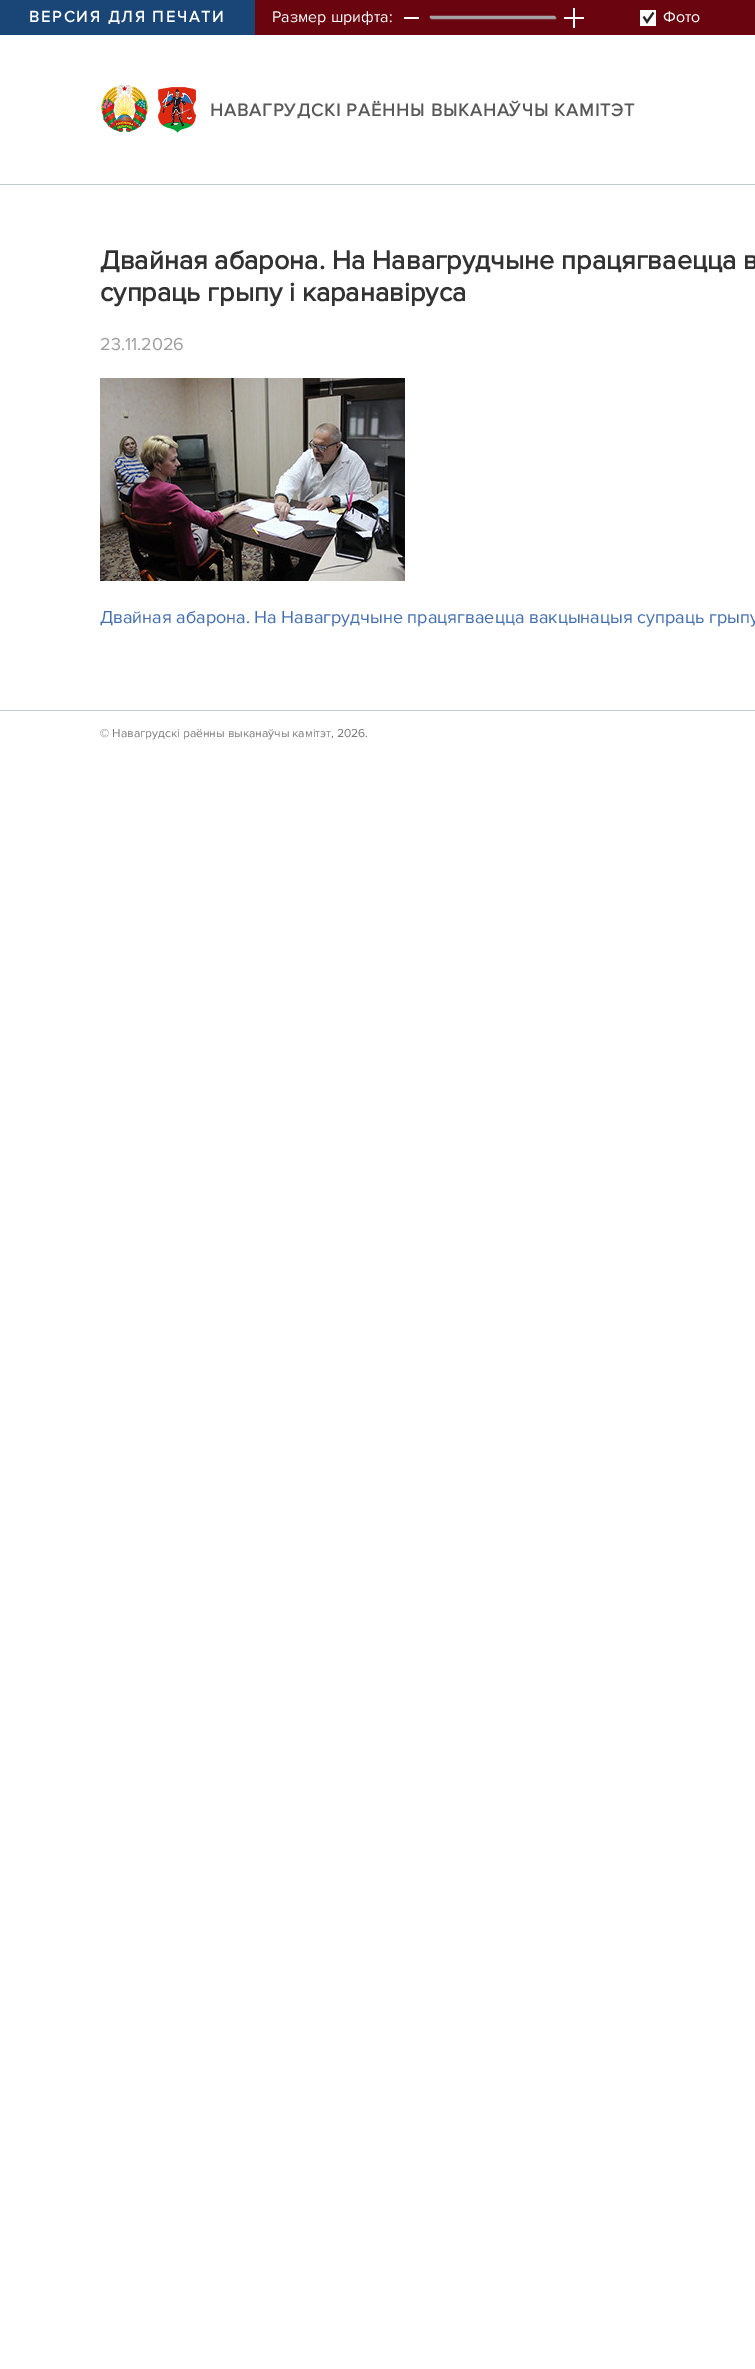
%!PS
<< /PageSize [755 2369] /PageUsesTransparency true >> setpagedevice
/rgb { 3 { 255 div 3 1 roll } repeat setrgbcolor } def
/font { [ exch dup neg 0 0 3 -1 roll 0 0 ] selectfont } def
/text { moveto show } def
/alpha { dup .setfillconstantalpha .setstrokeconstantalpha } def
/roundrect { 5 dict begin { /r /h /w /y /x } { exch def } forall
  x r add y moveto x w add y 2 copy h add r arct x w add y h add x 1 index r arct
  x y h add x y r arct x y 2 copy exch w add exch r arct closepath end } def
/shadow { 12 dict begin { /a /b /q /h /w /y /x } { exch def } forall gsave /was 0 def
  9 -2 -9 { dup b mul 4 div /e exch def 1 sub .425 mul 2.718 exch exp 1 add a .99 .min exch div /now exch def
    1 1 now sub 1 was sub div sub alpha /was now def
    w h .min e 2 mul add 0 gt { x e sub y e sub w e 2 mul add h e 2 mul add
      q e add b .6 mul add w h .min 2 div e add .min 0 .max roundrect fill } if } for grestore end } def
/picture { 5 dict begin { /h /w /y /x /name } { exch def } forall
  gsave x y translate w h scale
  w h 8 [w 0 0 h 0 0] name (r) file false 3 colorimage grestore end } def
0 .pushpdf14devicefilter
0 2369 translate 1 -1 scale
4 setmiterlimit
255 255 255 rgb
0 0 755 2369 rectfill
106 5 15 rgb
255 0 500 35 rectfill
26 70 119 rgb
0 0 255 35 rectfill
255 255 255 rgb
404 17 15 2 rectfill
167 167 167 rgb
430 16 125 2 1 0.5 1 shadow
431 17 125 2 1 0.5 1 shadow
430 16 125 2 1 roundrect fill
(img_01.rgb) 564 8 20 20 picture
(img_02.rgb) 640 10 16 16 picture
194 202 205 rgb
0 184 755 1 rectfill
(img_03.rgb) 101 85 47 47 picture
(img_04.rgb) 158 87 38 46 picture
(img_05.rgb) 100 378 305 203 picture
0 710 755 1 rectfill
/ProximaNova-Bold 16 font
255 255 255 rgb
29 22 moveto 2 0 (ВЕРСИЯ ДЛЯ ПЕЧАТИ) ashow
/ProximaNova-Regular 16 font
(Размер шрифта:) 272 22 text
(Фото) 663 22 text
/ProximaNova-Bold 18 font
88 88 88 rgb
210 116 moveto 1 0 (НАВАГРУДСКІ РАЁННЫ ВЫКАНАЎЧЫ КАМІТЭТ) ashow
/ProximaNova-Bold 27 font
50 50 50 rgb
(Двайная абарона. На Навагрудчыне працягваецца в) 100 269 text
(супраць грыпу і каранавіруса) 100 301 text
/ProximaNova-Regular 18 font
158 158 158 rgb
(23.11.2026) 100 350 text
68 111 175 rgb
(Двайная абарона. На Навагрудчыне працягваецца вакцынацыя супраць грыпу) 100 623 text
/ProximaNova-Regular 12 font
121 121 121 rgb
(© Навагрудскі раённы выканаўчы камітэт, 2026.) 100 737 text
.poppdf14devicefilter showpage
